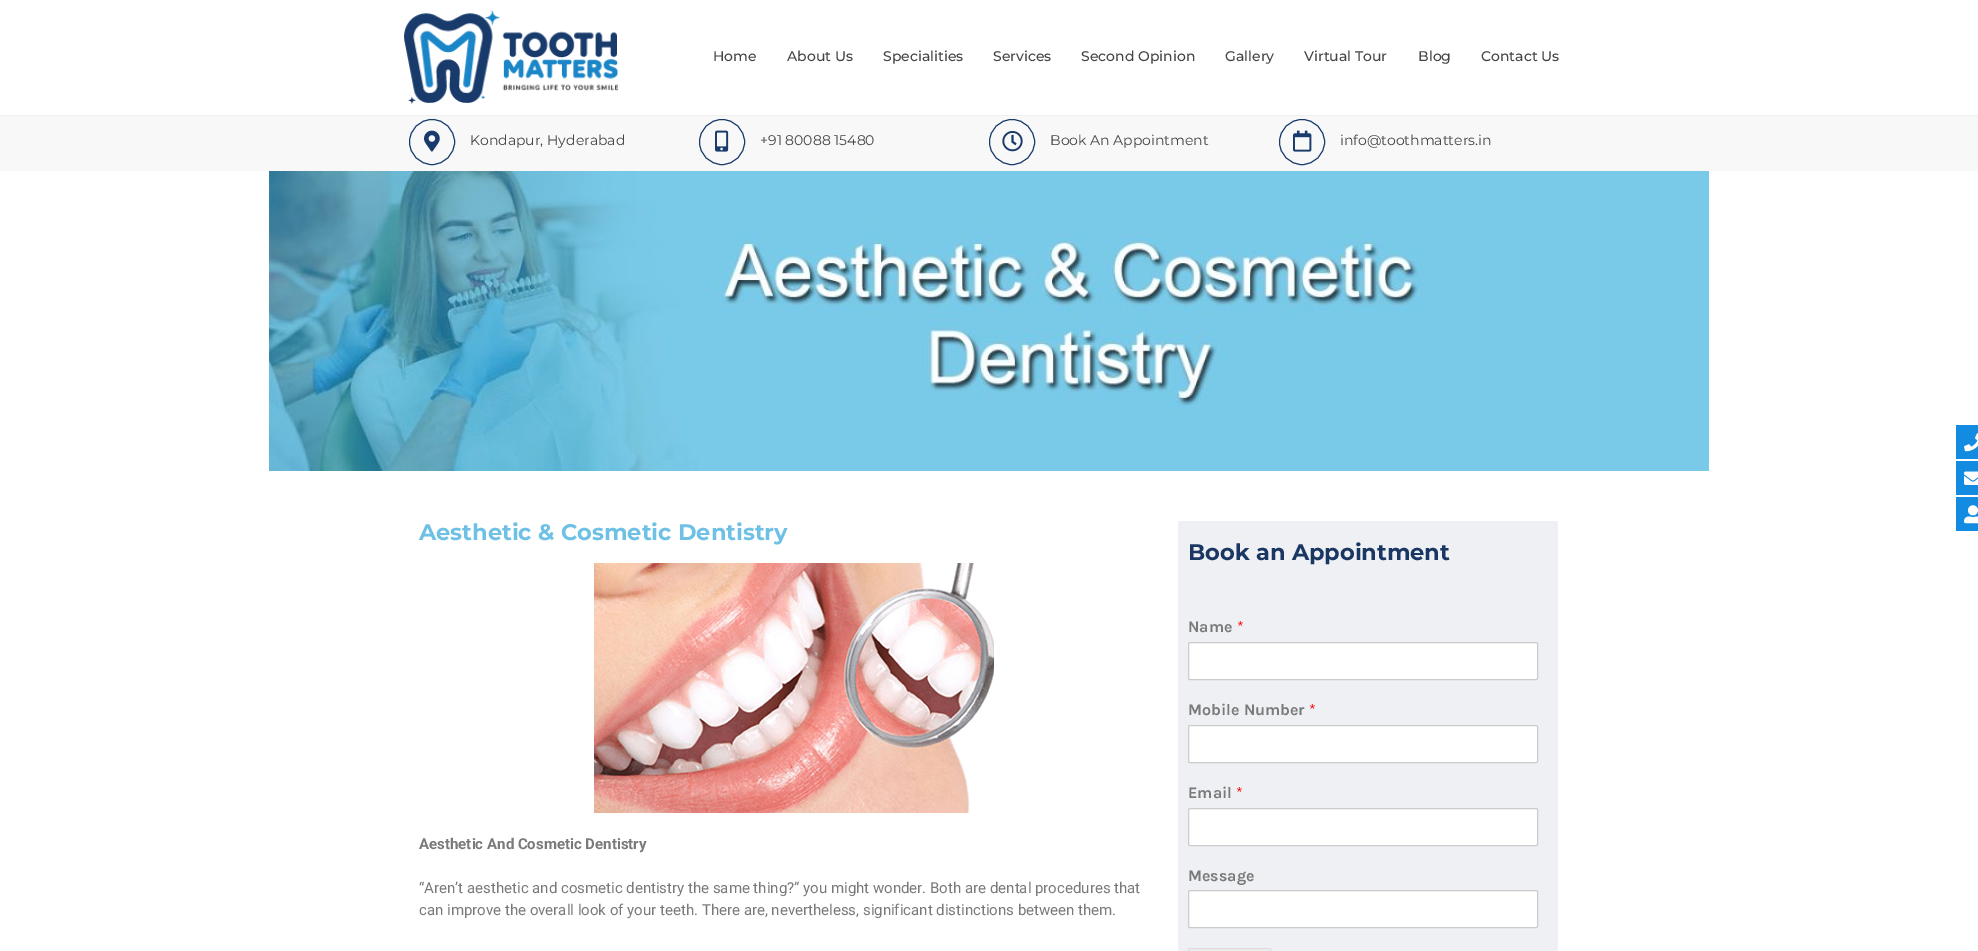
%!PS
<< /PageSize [1978 951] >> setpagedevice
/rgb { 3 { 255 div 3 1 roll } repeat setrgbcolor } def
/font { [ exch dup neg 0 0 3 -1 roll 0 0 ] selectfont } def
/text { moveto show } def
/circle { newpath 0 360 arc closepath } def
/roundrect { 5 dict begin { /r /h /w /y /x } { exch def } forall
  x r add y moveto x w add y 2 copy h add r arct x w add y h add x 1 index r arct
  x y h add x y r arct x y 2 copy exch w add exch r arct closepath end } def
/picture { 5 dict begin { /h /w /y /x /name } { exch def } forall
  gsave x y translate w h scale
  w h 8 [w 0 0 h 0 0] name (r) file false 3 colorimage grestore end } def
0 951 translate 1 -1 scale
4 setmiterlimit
255 255 255 rgb
0 0 1978 951 rectfill
(img_01.rgb) 404 10 215 94 picture
248 248 248 rgb
0 116 1978 55 rectfill
240 240 240 rgb
0 115 1978 1 rectfill
25 59 108 rgb
432 142 22.5 circle stroke
(img_02.rgb) 424 130 16 22 picture
722 142 22.5 circle stroke
(img_03.rgb) 715 130 14 22 picture
1012 142 22.5 circle stroke
(img_04.rgb) 1002 131 21 21 picture
1302 142 22.5 circle stroke
(img_05.rgb) 1293 130 19 22 picture
18 139 224 rgb
1956 425 22 34 rectfill
(img_06.rgb) 1964 433 14 19 picture
1956 461 22 34 rectfill
(img_07.rgb) 1964 471 14 14 picture
1956 497 22 34 rectfill
(img_08.rgb) 1964 505 14 19 picture
(img_09.rgb) 269 171 1440 300 picture
(img_10.rgb) 594 563 400 250 picture
238 240 244 rgb
1178 521 380 430 rectfill
255 255 255 rgb
1188.5 642.5 349 37 1.5 roundrect gsave fill grestore
204 204 204 rgb
stroke
255 255 255 rgb
1188.5 725.5 349 37 1.5 roundrect gsave fill grestore
204 204 204 rgb
stroke
255 255 255 rgb
1188.5 808.5 349 37 1.5 roundrect gsave fill grestore
204 204 204 rgb
stroke
255 255 255 rgb
1188.5 890.5 349 37 1.5 roundrect gsave fill grestore
204 204 204 rgb
stroke
238 238 238 rgb
1188.5 948.5 moveto 82 0 rlineto 0 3 rlineto -82 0 rlineto closepath gsave fill grestore
221 221 221 rgb
stroke
/Montserrat-Medium 14 font
68 68 68 rgb
(Home) 713 61 text
(About Us) 787 61 text
(Specialities) 883 61 text
(Services) 993 61 text
(Second Opinion) 1081 61 text
(Gallery) 1225 61 text
(Virtual Tour) 1304 61 text
(Blog) 1418 61 text
(Contact Us) 1481 61 text
/Montserrat-Regular 14 font
(Kondapur, Hyderabad) 470 145 text
(+91 80088 15480) 760 145 text
(Book An Appointment) 1050 145 text
(info@toothmatters.in) 1340 145 text
/Montserrat-Bold 22.5 font
110 193 228 rgb
(Aesthetic & Cosmetic Dentistry) 419 540 text
/Roboto-Bold 15 font
122 122 122 rgb
(Aesthetic And Cosmetic Dentistry) 419 849 text
/Roboto-Regular 15 font
(“Aren’t aesthetic and cosmetic dentistry the same thing?” you might wonder. Both are dental procedures that) 419 893 text
(can improve the overall look of your teeth. There are, nevertheless, significant distinctions between them.) 419 915 text
/Montserrat-Bold 22.5 font
26 54 99 rgb
(Book an Appointment) 1188 560 text
/Karla-Bold 16 font
122 122 122 rgb
(Name) 1188 632 text
/Karla-Regular 16 font
255 0 0 rgb
(*) 1237 632 text
/Karla-Bold 16 font
122 122 122 rgb
(Mobile Number) 1188 715 text
/Karla-Regular 16 font
255 0 0 rgb
(*) 1309 715 text
/Karla-Bold 16 font
122 122 122 rgb
(Email) 1188 798 text
/Karla-Regular 16 font
255 0 0 rgb
(*) 1236 798 text
/Karla-Bold 16 font
122 122 122 rgb
(Message) 1188 881 text
showpage
